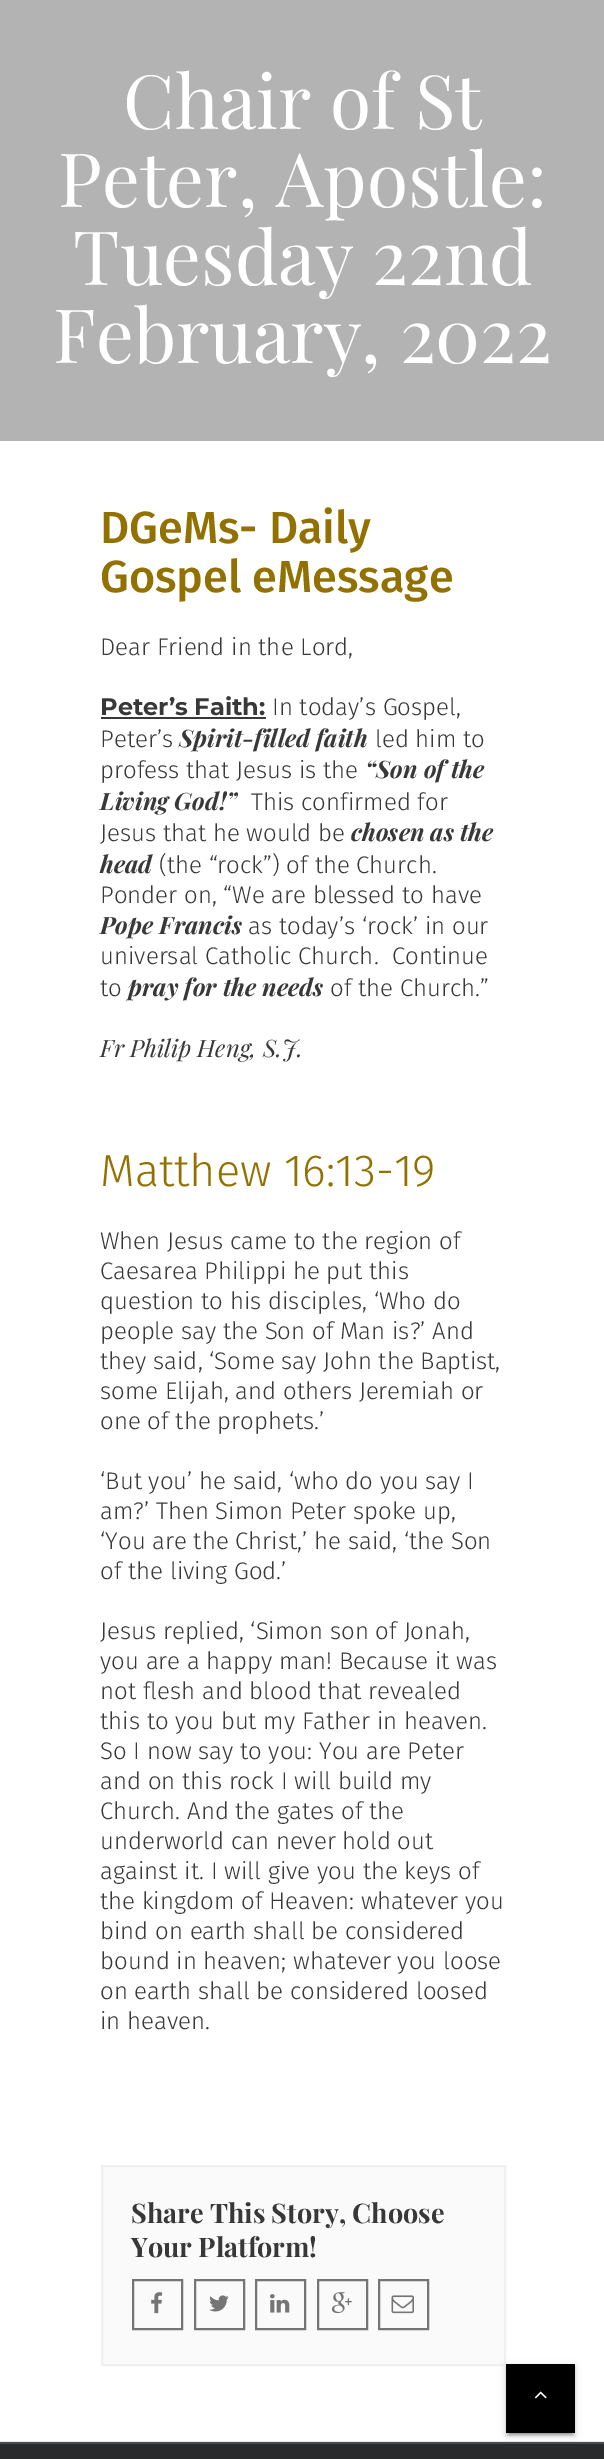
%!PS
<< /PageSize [604 2459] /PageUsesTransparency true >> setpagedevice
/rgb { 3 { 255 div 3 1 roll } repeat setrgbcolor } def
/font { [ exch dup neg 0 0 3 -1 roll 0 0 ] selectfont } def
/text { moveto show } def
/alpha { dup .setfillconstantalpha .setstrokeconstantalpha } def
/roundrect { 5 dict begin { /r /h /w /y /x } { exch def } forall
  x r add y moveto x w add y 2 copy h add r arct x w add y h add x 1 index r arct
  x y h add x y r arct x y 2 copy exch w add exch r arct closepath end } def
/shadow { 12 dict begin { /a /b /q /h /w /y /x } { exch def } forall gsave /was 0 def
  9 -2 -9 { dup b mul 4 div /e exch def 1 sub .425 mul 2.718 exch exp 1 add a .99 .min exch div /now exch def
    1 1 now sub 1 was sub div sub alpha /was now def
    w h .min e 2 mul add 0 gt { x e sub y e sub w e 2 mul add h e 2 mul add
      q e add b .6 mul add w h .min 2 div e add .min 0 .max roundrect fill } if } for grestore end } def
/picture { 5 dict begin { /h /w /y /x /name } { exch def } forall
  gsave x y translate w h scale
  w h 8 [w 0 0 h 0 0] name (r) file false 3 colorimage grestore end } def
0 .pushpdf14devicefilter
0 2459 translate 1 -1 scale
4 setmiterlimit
255 255 255 rgb
0 0 604 2459 rectfill
179 179 179 rgb
0 0 604 441 rectfill
56 56 56 rgb
101 717 165 2 rectfill
250 250 250 rgb
102 2166 moveto 403 0 rlineto 0 199 rlineto -403 0 rlineto closepath gsave fill grestore
240 240 240 rgb
2 setlinewidth
stroke
117 117 117 rgb
133 2280 49 49 rectstroke
(img_01.rgb) 151 2292 12 22 picture
195 2280 49 49 rectstroke
(img_02.rgb) 209 2295 20 17 picture
256 2280 49 49 rectstroke
(img_03.rgb) 270 2294 20 19 picture
318 2280 49 49 rectstroke
(img_04.rgb) 331 2292 21 22 picture
379 2280 49 49 rectstroke
(img_05.rgb) 391 2295 23 19 picture
0 0 0 rgb
509 2372 63 63 0 1 0.2 shadow
233 234 238 rgb
0 2441 604 1 rectfill
40 42 43 rgb
0 2444 604 15 rectfill
75 76 77 rgb
0 2442 604 2 rectfill
0 0 0 rgb
506 2366 69 69 0 4 0.12 shadow
506 2367 69 69 0 1.5 0.14 shadow
506 2364 69 69 rectfill
(img_06.rgb) 534 2391 13 8 picture
/PlayfairDisplay-Regular 75 font
255 255 255 rgb
(Chair of St) 123 129 text
(Peter, Apostle:) 58 207 text
(Tuesday 22nd) 73 285 text
(February, 2022) 53 363 text
/FiraSans-Medium 45 font
147 113 0 rgb
(DGeMs- Daily) 100 543 text
(Gospel eMessage) 100 592 text
/FiraSans-Light 24 font
56 56 56 rgb
(Dear Friend in the Lord,) 100 655 text
/Montserrat-Thin 24 font
(Peter’s Faith:) 100 715 text
/FiraSans-Light 24 font
(In today’s Gospel,) 272 715 text
(Peter’s) 100 747 text
/PlayfairDisplay-BoldItalic 24 font
(Spirit-filled faith) 179 747 text
/FiraSans-Light 24 font
(led him to) 375 747 text
(profess that Jesus is the) 100 778 text
/PlayfairDisplay-BoldItalic 24 font
(“Son of the) 365 778 text
(Living God!”) 100 810 text
/FiraSans-Light 24 font
(This confirmed for) 251 810 text
(Jesus that he would be) 100 841 text
/PlayfairDisplay-BoldItalic 24 font
(chosen as the) 351 841 text
(head) 100 873 text
/FiraSans-Light 24 font
(\(the “rock”\) of the Church.) 159 873 text
(Ponder on, “We are blessed to have) 100 903 text
/PlayfairDisplay-BoldItalic 24 font
(Pope Francis) 100 934 text
/FiraSans-Light 24 font
(as today’s ‘rock’ in our) 248 934 text
(universal Catholic Church.  Continue) 100 964 text
(to) 100 996 text
/PlayfairDisplay-BoldItalic 24 font
(pray for the needs) 128 996 text
/FiraSans-Light 24 font
(of the Church.”) 330 996 text
/PlayfairDisplay-Italic 24 font
(Fr Philip Heng, S.J.) 100 1057 text
/FiraSans-Light 45 font
147 113 0 rgb
(Matthew 16:13-19) 100 1186 text
/FiraSans-Light 24 font
56 56 56 rgb
(When Jesus came to the region of) 100 1249 text
(Caesarea Philippi he put this) 100 1279 text
(question to his disciples, ‘Who do) 100 1309 text
(people say the Son of Man is?’ And) 100 1339 text
(they said, ‘Some say John the Baptist,) 100 1369 text
(some Elijah, and others Jeremiah or) 100 1399 text
(one of the prophets.’) 100 1429 text
(‘But you’ he said, ‘who do you say I) 100 1489 text
(am?’ Then Simon Peter spoke up,) 100 1519 text
(‘You are the Christ,’ he said, ‘the Son) 100 1549 text
(of the living God.’) 100 1579 text
(Jesus replied, ‘Simon son of Jonah,) 100 1639 text
(you are a happy man! Because it was) 100 1669 text
(not flesh and blood that revealed) 100 1699 text
(this to you but my Father in heaven.) 100 1729 text
(So I now say to you: You are Peter) 100 1759 text
(and on this rock I will build my) 100 1789 text
(Church. And the gates of the) 100 1819 text
(underworld can never hold out) 100 1849 text
(against it. I will give you the keys of) 100 1879 text
(the kingdom of Heaven: whatever you) 100 1909 text
(bind on earth shall be considered) 100 1939 text
(bound in heaven; whatever you loose) 100 1969 text
(on earth shall be considered loosed) 100 1999 text
(in heaven.) 100 2029 text
/PlayfairDisplay-Bold 27 font
(Share This Story, Choose) 131 2223 text
(Your Platform!) 131 2257 text
.poppdf14devicefilter showpage
